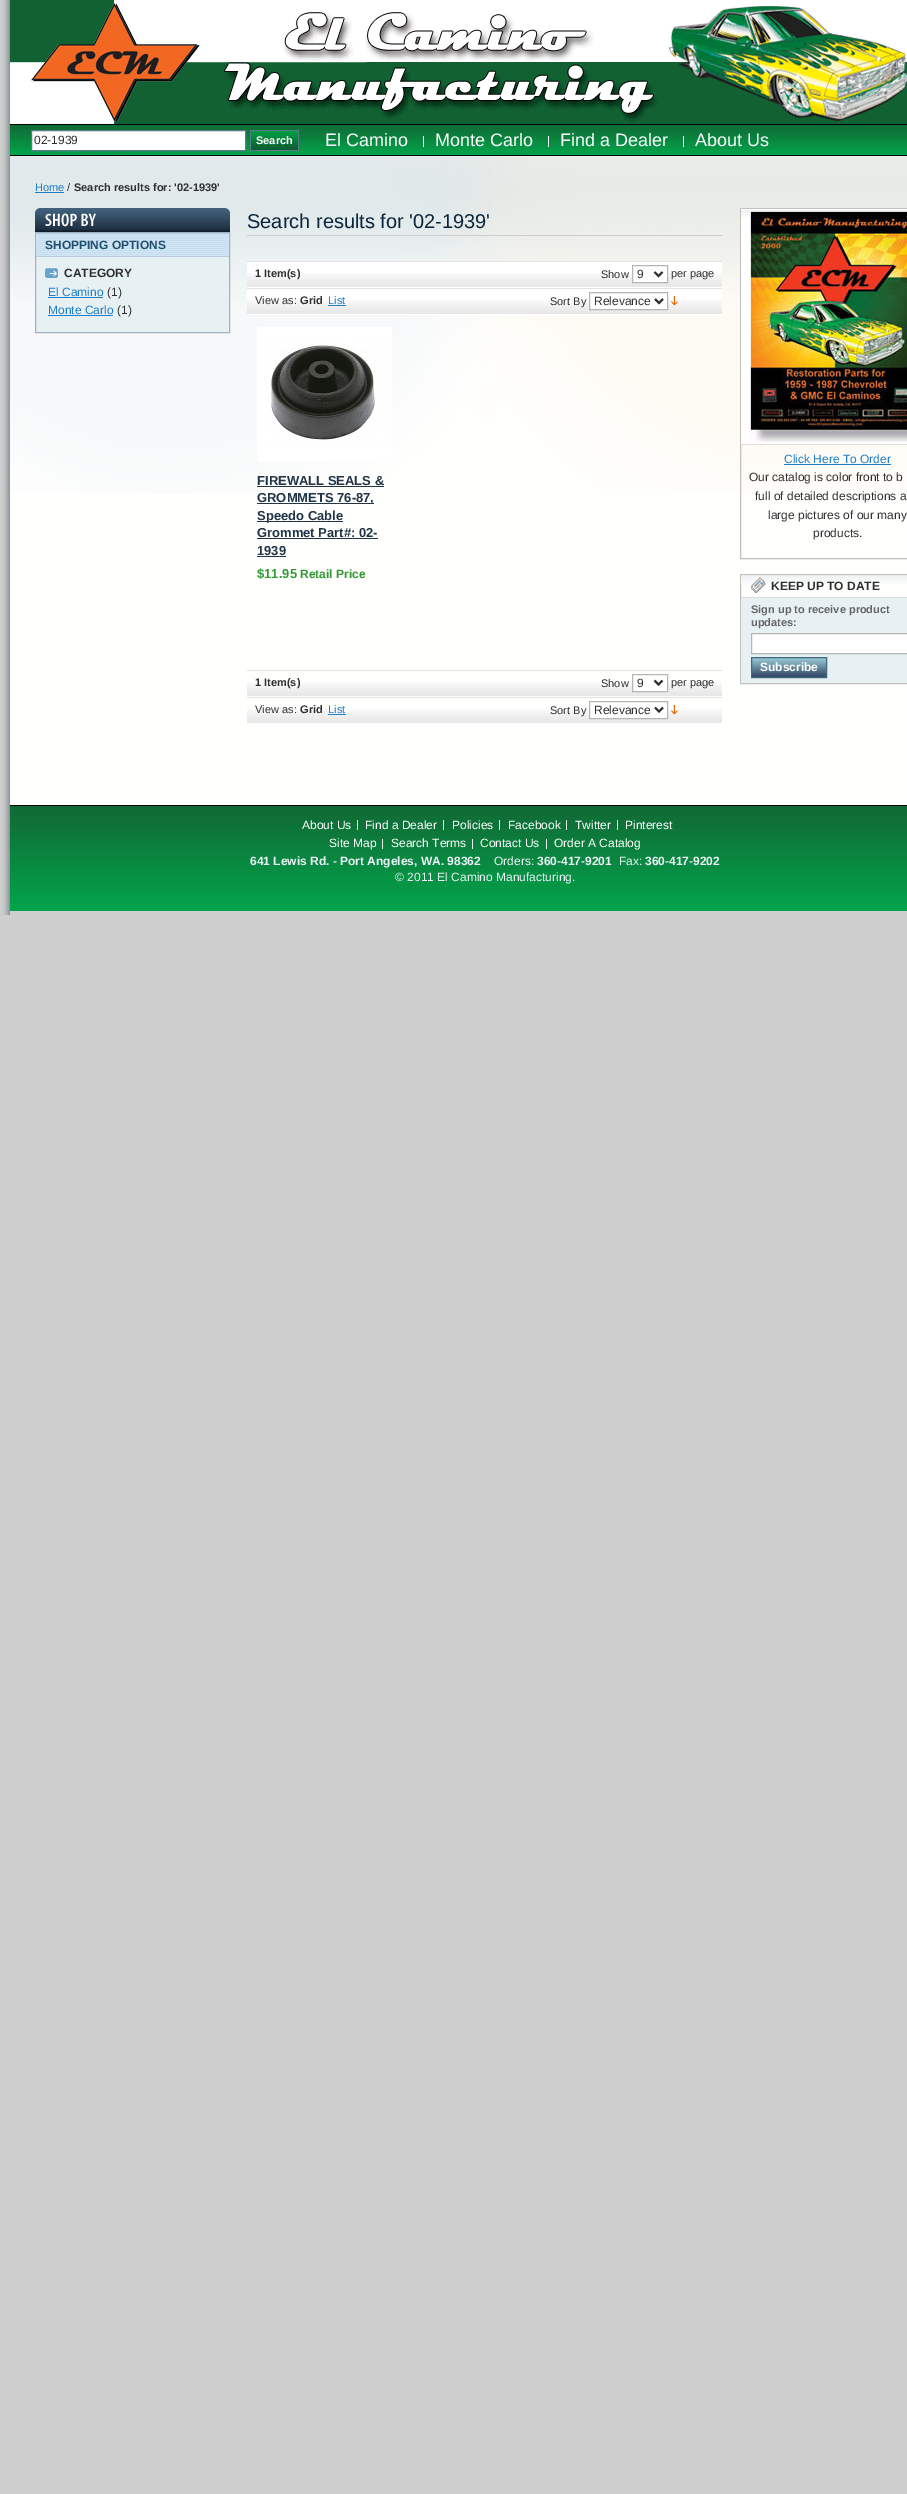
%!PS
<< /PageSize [907 2494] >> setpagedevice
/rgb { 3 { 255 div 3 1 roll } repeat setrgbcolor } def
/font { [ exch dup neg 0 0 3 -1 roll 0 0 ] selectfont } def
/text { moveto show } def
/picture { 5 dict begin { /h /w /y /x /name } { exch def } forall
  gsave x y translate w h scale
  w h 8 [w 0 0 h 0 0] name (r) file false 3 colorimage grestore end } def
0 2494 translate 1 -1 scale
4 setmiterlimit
206 206 206 rgb
0 0 907 2494 rectfill
(img_01.rgb) 2 0 8 124 picture
(img_02.rgb) 10 0 897 124 picture
(img_03.rgb) 31 3 169 120 picture
(img_06.rgb) 10 124 897 32 picture
255 255 255 rgb
31.5 130.5 moveto 214 0 rlineto 0 20 rlineto -214 0 rlineto closepath gsave fill grestore
92 121 137 rgb
stroke
(img_04.rgb) 250 130 49 21 picture
90 121 140 rgb
298 131 1 19 rectfill
(img_05.rgb) 2 124 8 32 picture
255 255 255 rgb
423 136 1 11 rectfill
548 136 1 11 rectfill
683 136 1 11 rectfill
(img_07.rgb) 2 156 8 649 picture
255 255 254 rgb
10 401 897 404 rectfill
(img_08.rgb) 10 156 897 337 picture
30 126 200 rgb
35 192 29 1 rectfill
(img_09.rgb) 35 208 195 24 picture
231 241 244 rgb
36 257 193 75 rectfill
160 179 195 rgb
35.5 232.5 194 100 rectstroke
(img_10.rgb) 36 234 193 22 picture
185 204 221 rgb
36 233 193 1 rectfill
36 256 193 1 rectfill
(img_11.rgb) 45 268 13 10 picture
30 126 200 rgb
48 297 55 1 rectfill
48 315 65 1 rectfill
204 204 204 rgb
247 235 475 1 rectfill
255 255 255 rgb
247 262 475 26 rectfill
(img_12.rgb) 247 273 475 14 picture
226 226 226 rgb
247 261 475 1 rectfill
255 255 255 rgb
633 273 34 9 rectfill
182 182 182 rgb
632.5 265.5 35 17 rectstroke
47 47 47 rgb
2 setlinewidth
654.5 272 moveto 4 4 rlineto 4 -4 rlineto stroke
255 255 255 rgb
247 289 475 26 rectfill
(img_12.rgb) 247 300 475 14 picture
226 226 226 rgb
247 288 475 1 rectfill
30 126 200 rgb
328 305 18 1 rectfill
255 255 255 rgb
590 300 77 9 rectfill
182 182 182 rgb
1 setlinewidth
589.5 292.5 78 17 rectstroke
47 47 47 rgb
2 setlinewidth
655 299 moveto 4 4 rlineto 4 -4 rlineto stroke
(img_13.rgb) 671 296 7 10 picture
(img_14.rgb) 257 327 135 135 picture
32 53 72 rgb
257 486 127 1 rectfill
257 503 117 1 rectfill
257 521 86 1 rectfill
257 538 121 1 rectfill
257 556 29 1 rectfill
(img_12.rgb) 247 682 475 14 picture
226 226 226 rgb
247 670 475 1 rectfill
255 255 255 rgb
633 682 34 9 rectfill
182 182 182 rgb
1 setlinewidth
632.5 674.5 35 17 rectstroke
47 47 47 rgb
2 setlinewidth
654.5 680.5 moveto 4 4 rlineto 4 -4 rlineto stroke
(img_12.rgb) 247 709 475 14 picture
226 226 226 rgb
247 697 475 1 rectfill
30 126 200 rgb
328 714 18 1 rectfill
255 255 255 rgb
590 709 77 9 rectfill
182 182 182 rgb
1 setlinewidth
589.5 701.5 78 17 rectstroke
47 47 47 rgb
2 setlinewidth
655 707.5 moveto 4 4 rlineto 4 -4 rlineto stroke
(img_15.rgb) 671 705 7 10 picture
196 193 188 rgb
1 setlinewidth
740.5 208.5 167 350 rectstroke
255 255 255 rgb
741 209 166 235 rectfill
(img_16.rgb) 741 210 166 8 picture
221 221 221 rgb
741 444 166 1 rectfill
(img_17.rgb) 750 211 157 231 picture
30 126 200 rgb
784 464 107 1 rectfill
196 193 188 rgb
740.5 574.5 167 109 rectstroke
(img_16.rgb) 741 576 166 8 picture
221 221 221 rgb
741 597 166 1 rectfill
(img_18.rgb) 751 577 15 16 picture
231 241 244 rgb
741 598 166 85 rectfill
255 255 255 rgb
751.5 633.5 moveto 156 0 rlineto 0 20 rlineto -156 0 rlineto closepath gsave fill grestore
182 182 182 rgb
stroke
145 193 203 rgb
752 658 74 2 rectfill
(img_19.rgb) 752 660 74 17 picture
64 106 131 rgb
751.5 657.5 75 20 rectstroke
(img_20.rgb) 760 660 58 17 picture
(img_21.rgb) 2 805 8 110 picture
(img_22.rgb) 10 806 897 105 picture
0 0 0 rgb
10 805 897 1 rectfill
233 233 233 rgb
357 820 1 10 rectfill
443 820 1 10 rectfill
499 820 1 10 rectfill
566 820 1 10 rectfill
617 820 1 10 rectfill
382 839 1 10 rectfill
472 839 1 10 rectfill
546 839 1 10 rectfill
/LiberationSans-Regular 12 font
47 47 47 rgb
(02-1939) 34 144 text
/LiberationSans-Bold 11 font
255 255 255 rgb
(Search) 256 144 text
/LiberationSans-Regular 18 font
(El Camino) 325 146 text
(Monte Carlo) 435 146 text
(Find a Dealer) 560 146 text
(About Us) 695 146 text
/LiberationSans-Regular 11 font
30 126 200 rgb
(Home) 35 191 text
47 47 47 rgb
(/) 67 191 text
/LiberationSans-Bold 11 font
(Search results for: '02-1939') 74 191 text
/LiberationSans-Bold 12 font
31 80 112 rgb
(SHOPPING OPTIONS) 45 249 text
47 47 47 rgb
(CATEGORY) 64 277 text
/LiberationSans-Regular 12 font
30 126 200 rgb
(El Camino) 48 296 text
47 47 47 rgb
(\(1\)) 107 296 text
30 126 200 rgb
(Monte Carlo) 48 314 text
47 47 47 rgb
(\(1\)) 117 314 text
/LiberationSans-Regular 20 font
10 38 60 rgb
(Search results for '02-1939') 247 228 text
/LiberationSans-Bold 11 font
47 47 47 rgb
(1 Item\(s\)) 255 277 text
/LiberationSans-Regular 11 font
(Show) 601 278 text
/LiberationSans-Regular 12 font
(9) 637 278 text
/LiberationSans-Regular 11 font
(per page) 671 277 text
(View as:) 255 304 text
/LiberationSans-Bold 11 font
(Grid) 300 304 text
/LiberationSans-Regular 11 font
30 126 200 rgb
(List) 328 304 text
47 47 47 rgb
(Sort By) 550 305 text
/LiberationSans-Regular 12 font
(Relevance) 594 305 text
/LiberationSans-Bold 13 font
32 53 72 rgb
(FIREWALL SEALS &) 257 485 text
(GROMMETS 76-87,) 257 502 text
(Speedo Cable) 257 520 text
(Grommet Part#: 02-) 257 537 text
(1939) 257 555 text
51 153 51 rgb
($11.95) 257 578 text
/LiberationSans-Bold 12 font
(Retail Price) 300 578 text
/LiberationSans-Bold 11 font
47 47 47 rgb
(1 Item\(s\)) 255 686 text
/LiberationSans-Regular 11 font
(Show) 601 687 text
/LiberationSans-Regular 12 font
(9) 637 687 text
/LiberationSans-Regular 11 font
(per page) 671 686 text
(View as:) 255 713 text
/LiberationSans-Bold 11 font
(Grid) 300 713 text
/LiberationSans-Regular 11 font
30 126 200 rgb
(List) 328 713 text
47 47 47 rgb
(Sort By) 550 714 text
/LiberationSans-Regular 12 font
(Relevance) 594 714 text
30 126 200 rgb
(Click Here To Order) 784 463 text
47 47 47 rgb
(Our catalog is color front to b) 749 481 text
(full of detailed descriptions a) 755 500 text
(large pictures of our many) 768 519 text
(products.) 813 537 text
/LiberationSans-Bold 12 font
(KEEP UP TO DATE) 771 590 text
/LiberationSans-Bold 11 font
102 102 102 rgb
(Sign up to receive product) 751 613 text
(updates:) 751 626 text
/LiberationSans-Bold 12 font
255 255 255 rgb
(Subscribe) 760 671 text
/LiberationSans-Regular 12 font
(About Us) 302 829 text
(Find a Dealer) 365 829 text
(Policies) 452 829 text
(Facebook) 508 829 text
(Twitter) 575 829 text
(Pinterest) 625 829 text
(Site Map) 329 847 text
(Search Terms) 391 847 text
(Contact Us) 480 847 text
(Order A Catalog) 554 847 text
/LiberationSans-Bold 12 font
236 243 246 rgb
(641 Lewis Rd. - Port Angeles, WA. 98362) 250 865 text
/LiberationSans-Regular 12 font
(Orders:) 494 865 text
/LiberationSans-Bold 12 font
(360-417-9201) 537 865 text
/LiberationSans-Regular 12 font
(Fax:) 619 865 text
/LiberationSans-Bold 12 font
(360-417-9202) 645 865 text
/LiberationSans-Regular 12 font
(© 2011 El Camino Manufacturing.) 395 881 text
showpage
